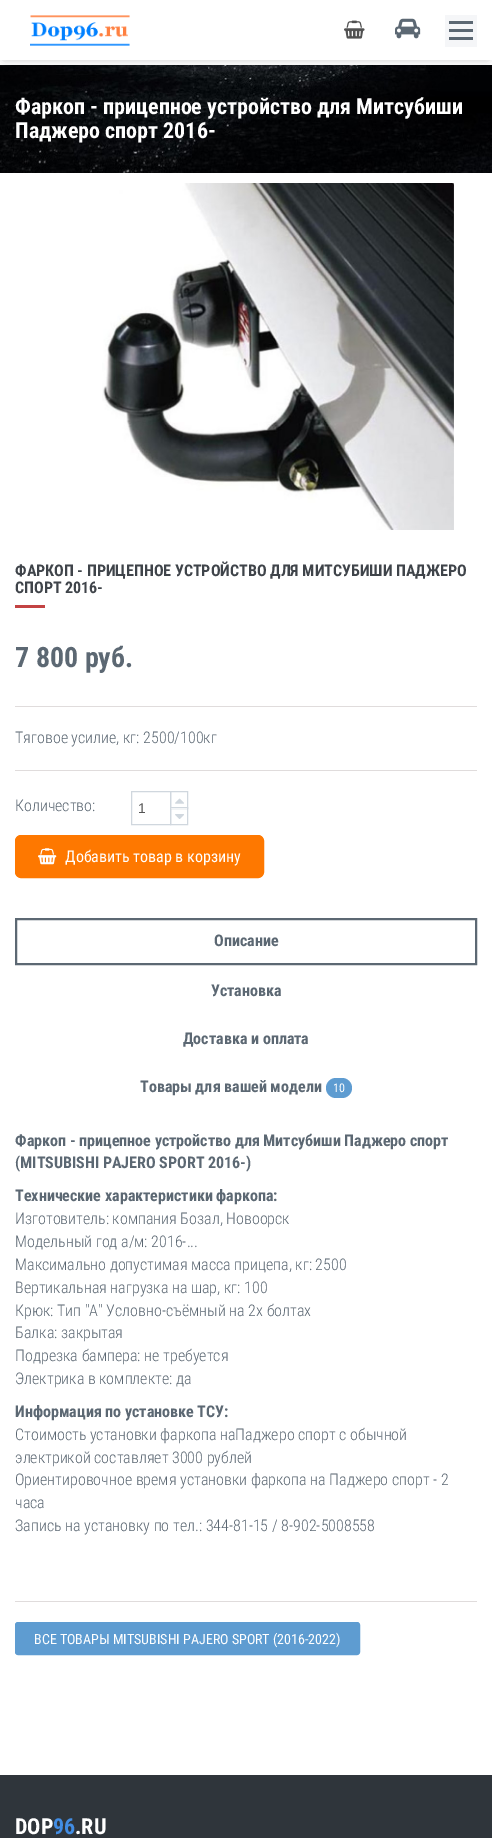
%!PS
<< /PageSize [492 1838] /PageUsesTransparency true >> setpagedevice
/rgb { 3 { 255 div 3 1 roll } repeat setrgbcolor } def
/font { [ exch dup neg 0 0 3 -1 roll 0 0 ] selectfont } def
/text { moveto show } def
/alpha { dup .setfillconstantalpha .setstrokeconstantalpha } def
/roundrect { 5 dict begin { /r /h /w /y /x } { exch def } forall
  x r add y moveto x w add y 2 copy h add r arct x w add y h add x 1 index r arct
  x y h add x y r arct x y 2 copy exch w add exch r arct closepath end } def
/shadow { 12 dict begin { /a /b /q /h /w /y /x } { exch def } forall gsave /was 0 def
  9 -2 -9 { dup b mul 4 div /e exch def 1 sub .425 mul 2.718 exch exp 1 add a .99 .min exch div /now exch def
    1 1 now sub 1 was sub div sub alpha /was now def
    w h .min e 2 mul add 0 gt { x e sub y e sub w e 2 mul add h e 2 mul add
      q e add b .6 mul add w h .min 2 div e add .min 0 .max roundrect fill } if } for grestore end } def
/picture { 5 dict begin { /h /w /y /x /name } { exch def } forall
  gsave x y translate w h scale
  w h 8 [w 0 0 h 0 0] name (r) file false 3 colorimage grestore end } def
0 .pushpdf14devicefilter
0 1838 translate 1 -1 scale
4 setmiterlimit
255 255 255 rgb
0 0 492 1838 rectfill
(img_04.rgb) 0 65 492 108 picture
gsave
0 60 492 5 rectclip
0 0 0 rgb
4 7 484 52 0 4.5 0.25 shadow
grestore
(img_01.rgb) 30 15 100 31 picture
(img_02.rgb) 344 20 21 19 picture
(img_03.rgb) 395 18 26 21 picture
245 246 248 rgb
445 15 32 32 rectfill
92 104 115 rgb
449 29 24 3 rectfill
449 21 24 3 rectfill
449 37 24 3 rectfill
(img_05.rgb) 102 183 352 347 picture
195 67 67 rgb
15 605 30 3 rectfill
224 220 220 rgb
15 706 462 1 rectfill
15 770 462 1 rectfill
208 215 222 rgb
131.5 791.5 39 33 rectstroke
170.5 791.5 17 17 rectstroke
(img_06.rgb) 175 798 9 6 picture
255 255 255 rgb
171 808 16 1 rectfill
208 215 222 rgb
170.5 807.5 17 17 rectstroke
(img_07.rgb) 175 814 9 5 picture
254 120 0 rgb
15.5 835.5 248 42 5.5 roundrect gsave fill grestore
stroke
(img_08.rgb) 38 848 19 17 picture
92 104 115 rgb
2 setlinewidth
16 919 460 45 rectstroke
94 156 209 rgb
326 1078 26 20 10 roundrect fill
224 220 220 rgb
15 1601 462 1 rectfill
94 156 209 rgb
15.5 1622.5 344 32 2.5 roundrect gsave fill grestore
1 setlinewidth
stroke
47 53 59 rgb
0 1775 492 63 rectfill
/RobotoCondensed-Bold 22 font
255 255 255 rgb
(Фаркоп - прицепное устройство для Митсубиши) 15 114 text
(Паджеро спорт 2016-) 15 138 text
/RobotoCondensed-Bold 16 font
63 68 74 rgb
(ФАРКОП - ПРИЦЕПНОЕ УСТРОЙСТВО ДЛЯ МИТСУБИШИ ПАДЖЕРО) 15 576 text
(СПОРТ 2016-) 15 593 text
/RobotoCondensed-Bold 28 font
92 104 115 rgb
(7 800 руб.) 15 667 text
/RobotoCondensed-Light 16 font
(Тяговое усилие, кг: 2500/100кг) 15 743 text
(Количество:) 15 811 text
/LiberationSans-Regular 14 font
85 85 85 rgb
(1) 138 813 text
/RobotoCondensed-Regular 16 font
255 255 255 rgb
(Добавить товар в корзину) 65 862 text
/RobotoCondensed-Bold 16 font
92 104 115 rgb
(Описание) 214 946 text
(Установка) 211 996 text
(Доставка и оплата) 183 1044 text
(Товары для вашей модели) 140 1092 text
/RobotoCondensed-Regular 12 font
255 255 255 rgb
(10) 333 1092 text
/RobotoCondensed-Bold 16 font
92 104 115 rgb
(Фаркоп - прицепное устройство для Митсубиши Паджеро спорт) 15 1146 text
(\(MITSUBISHI PAJERO SPORT 2016-\)) 15 1168 text
(Технические характеристики фаркопа:) 15 1201 text
/RobotoCondensed-Light 16 font
(Изготовитель: компания Бозал, Новоорск) 15 1224 text
(Модельный год а/м: 2016-...) 15 1247 text
(Максимально допустимая масса прицепа, кг: 2500) 15 1270 text
(Вертикальная нагрузка на шар, кг: 100) 15 1293 text
(Крюк: Тип "A" Условно-съёмный на 2х болтах) 15 1316 text
(Балка: закрытая) 15 1338 text
(Подрезка бампера: не требуется) 15 1361 text
(Электрика в комплекте: да) 15 1384 text
/RobotoCondensed-Bold 16 font
(Информация по установке ТСУ:) 15 1417 text
/RobotoCondensed-Light 16 font
(Стоимость установки фаркопа наПаджеро спорт с обычной) 15 1440 text
(электрикой составляет 3000 рублей) 15 1463 text
(Ориентировочное время установки фаркопа на Паджеро спорт - 2) 15 1485 text
(часа) 15 1508 text
(Запись на установку по тел.: 344-81-15 / 8-902-5008558) 15 1531 text
/RobotoCondensed-Regular 14 font
255 255 255 rgb
(ВСЕ ТОВАРЫ MITSUBISHI PAJERO SPORT \(2016-2022\)) 34 1644 text
/RobotoCondensed-Bold 22 font
(DOP) 15 1834 text
66 141 228 rgb
(96) 53 1834 text
255 255 255 rgb
(.RU) 75 1834 text
.poppdf14devicefilter showpage
